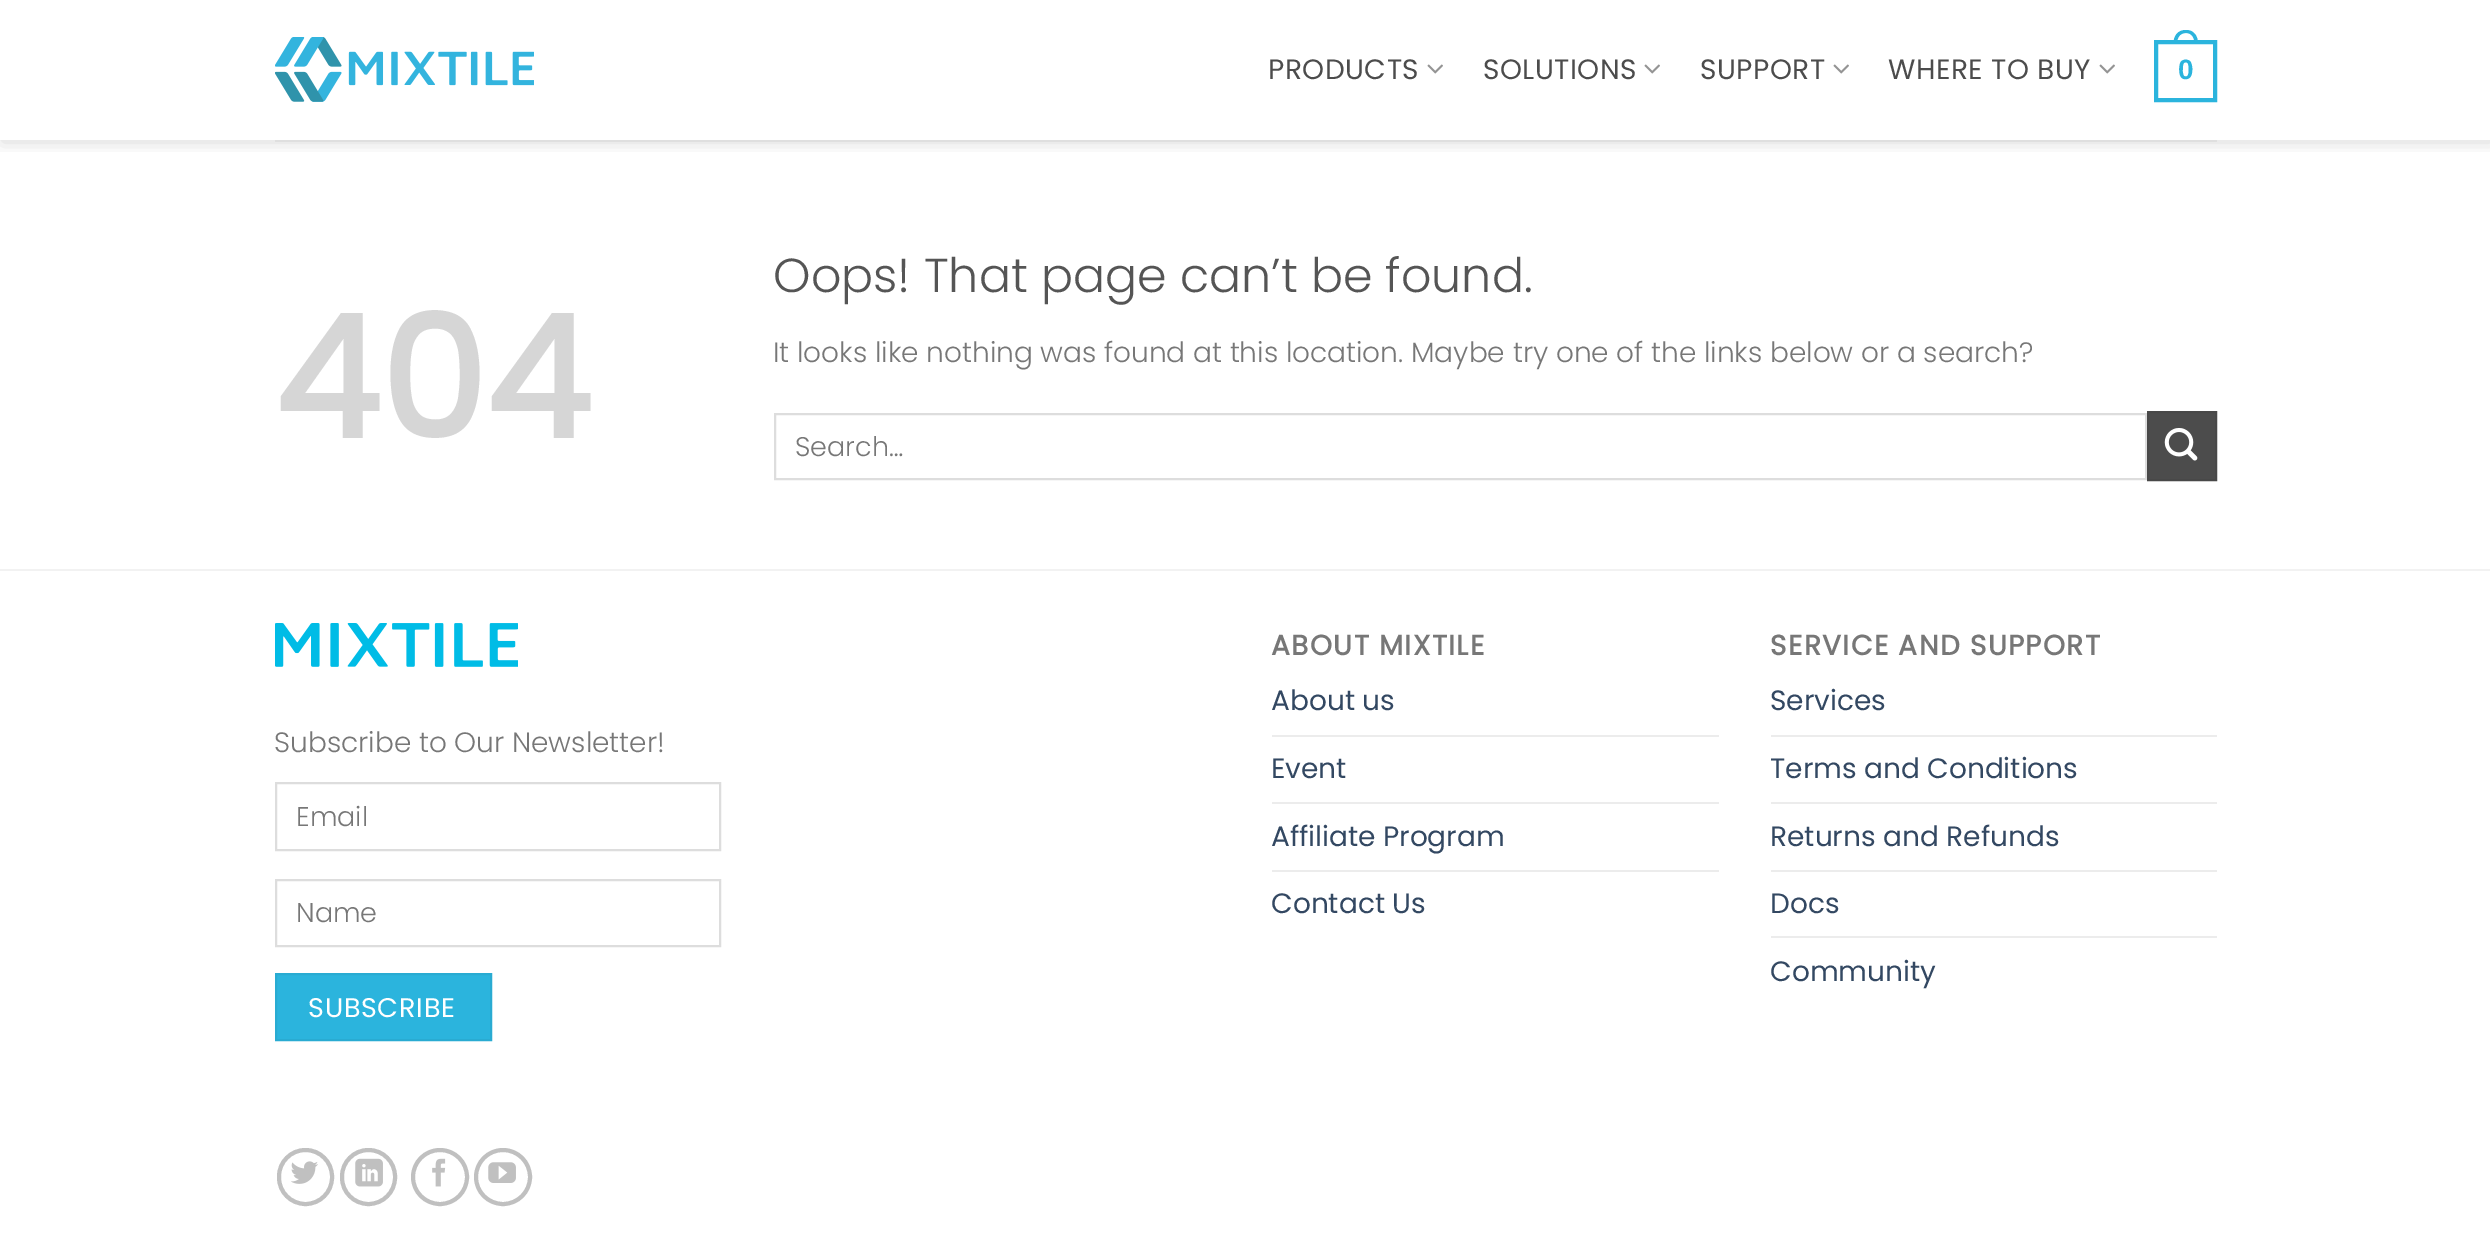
%!PS
<< /PageSize [2490 1237] /PageUsesTransparency true >> setpagedevice
/rgb { 3 { 255 div 3 1 roll } repeat setrgbcolor } def
/font { [ exch dup neg 0 0 3 -1 roll 0 0 ] selectfont } def
/text { moveto show } def
/alpha { dup .setfillconstantalpha .setstrokeconstantalpha } def
/circle { newpath 0 360 arc closepath } def
/roundrect { 5 dict begin { /r /h /w /y /x } { exch def } forall
  x r add y moveto x w add y 2 copy h add r arct x w add y h add x 1 index r arct
  x y h add x y r arct x y 2 copy exch w add exch r arct closepath end } def
/shadow { 12 dict begin { /a /b /q /h /w /y /x } { exch def } forall gsave /was 0 def
  9 -2 -9 { dup b mul 4 div /e exch def 1 sub .425 mul 2.718 exch exp 1 add a .99 .min exch div /now exch def
    1 1 now sub 1 was sub div sub alpha /was now def
    w h .min e 2 mul add 0 gt { x e sub y e sub w e 2 mul add h e 2 mul add
      q e add b .6 mul add w h .min 2 div e add .min 0 .max roundrect fill } if } for grestore end } def
/picture { 5 dict begin { /h /w /y /x /name } { exch def } forall
  gsave x y translate w h scale
  w h 8 [w 0 0 h 0 0] name (r) file false 3 colorimage grestore end } def
0 .pushpdf14devicefilter
0 1237 translate 1 -1 scale
4 setmiterlimit
255 255 255 rgb
0 0 2490 1237 rectfill
gsave
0 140 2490 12 rectclip
0 0 0 rgb
2 2 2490 140 0 9 0.15 shadow
grestore
(img_01.rgb) 275 37 259 65 picture
(img_02.rgb) 1427 64 16 10 picture
(img_02.rgb) 1644 64 16 10 picture
(img_02.rgb) 1833 64 16 10 picture
(img_02.rgb) 2099 64 16 10 picture
43 180 221 rgb
4 setlinewidth
2156 42 59 58 rectstroke
2186 30 moveto 8 0 12 6 12 14 rcurveto -24.5 0 rlineto 0 -8 4 -14 12.5 -14 rcurveto closepath 2186 33 moveto 6 0 8.5 5 8.5 11 rcurveto -17.5 0 rlineto 0 -6 2.5 -11 9 -11 rcurveto closepath eofill
223 223 223 rgb
275 140 1942 2 rectfill
221 221 221 rgb
2 setlinewidth
775 414 1371 65 rectstroke
76 76 76 rgb
2148 412 moveto 68 0 rlineto 0 68 rlineto -68 0 rlineto closepath gsave fill grestore
72 72 72 rgb
stroke
(img_03.rgb) 2164 428 34 33 picture
242 242 242 rgb
0 569 2490 2 rectfill
(img_04.rgb) 275 623 243 44 picture
221 221 221 rgb
276 783 444 67 rectstroke
276 880 444 66 rectstroke
43 180 221 rgb
276 974 moveto 215 0 rlineto 0 66 rlineto -215 0 rlineto closepath gsave fill grestore
41 171 210 rgb
stroke
236 236 236 rgb
1272 735 447 2 rectfill
1272 802 447 2 rectfill
1272 870 447 2 rectfill
1771 735 446 2 rectfill
1771 802 446 2 rectfill
1771 870 446 2 rectfill
1771 936 446 2 rectfill
192 192 192 rgb
4 setlinewidth
279 1150 53 54 26.5 roundrect stroke
(img_05.rgb) 291 1161 27 23 picture
342 1150 53 54 26.5 roundrect stroke
(img_06.rgb) 355 1158 28 29 picture
440 1177 27 circle stroke
(img_07.rgb) 432 1158 14 29 picture
503 1177 27 circle stroke
(img_08.rgb) 488 1162 28 21 picture
/Poppins-Regular 28 font
76 76 76 rgb
1268 79 moveto 0.5 0 (PRODUCTS) ashow
1483 79 moveto 0.5 0 (SOLUTIONS) ashow
1700 79 moveto 0.5 0 (SUPPORT) ashow
1888 79 moveto 0.5 0 (WHERE TO BUY) ashow
/LiberationSans-Bold 28 font
43 180 221 rgb
2178 79 moveto 0.5 0 (0) ashow
/Poppins-Bold 168 font
214 214 214 rgb
(404) 274 438 text
/Poppins-Light 47.6 font
85 85 85 rgb
(Oops! That page can’t be found.) 773 292 text
/Poppins-Light 28 font
119 119 119 rgb
(It looks like nothing was found at this location. Maybe try one of the links below or a search?) 773 362 text
/Poppins-Light 27 font
(Search…) 795 456 text
/Poppins-Light 28 font
(Subscribe to Our Newsletter!) 274 752 text
/Poppins-Light 27 font
(Email) 296 826 text
(Name) 296 922 text
/Poppins-Regular 27 font
255 255 255 rgb
308 1017 moveto 0.75 0 (SUBSCRIBE) ashow
/Poppins-Bold 28 font
119 119 119 rgb
1271 655 moveto 1.4 0 (ABOUT MIXTILE) ashow
/Poppins-Regular 28 font
51 72 98 rgb
(About us) 1271 710 text
(Event) 1271 778 text
(Affiliate Program) 1271 846 text
(Contact Us) 1271 913 text
/Poppins-Bold 28 font
119 119 119 rgb
1770 655 moveto 1.4 0 (SERVICE AND SUPPORT) ashow
/Poppins-Regular 28 font
51 72 98 rgb
(Services) 1770 710 text
(Terms and Conditions) 1770 778 text
(Returns and Refunds) 1770 846 text
(Docs) 1770 913 text
(Community) 1770 981 text
.poppdf14devicefilter showpage
